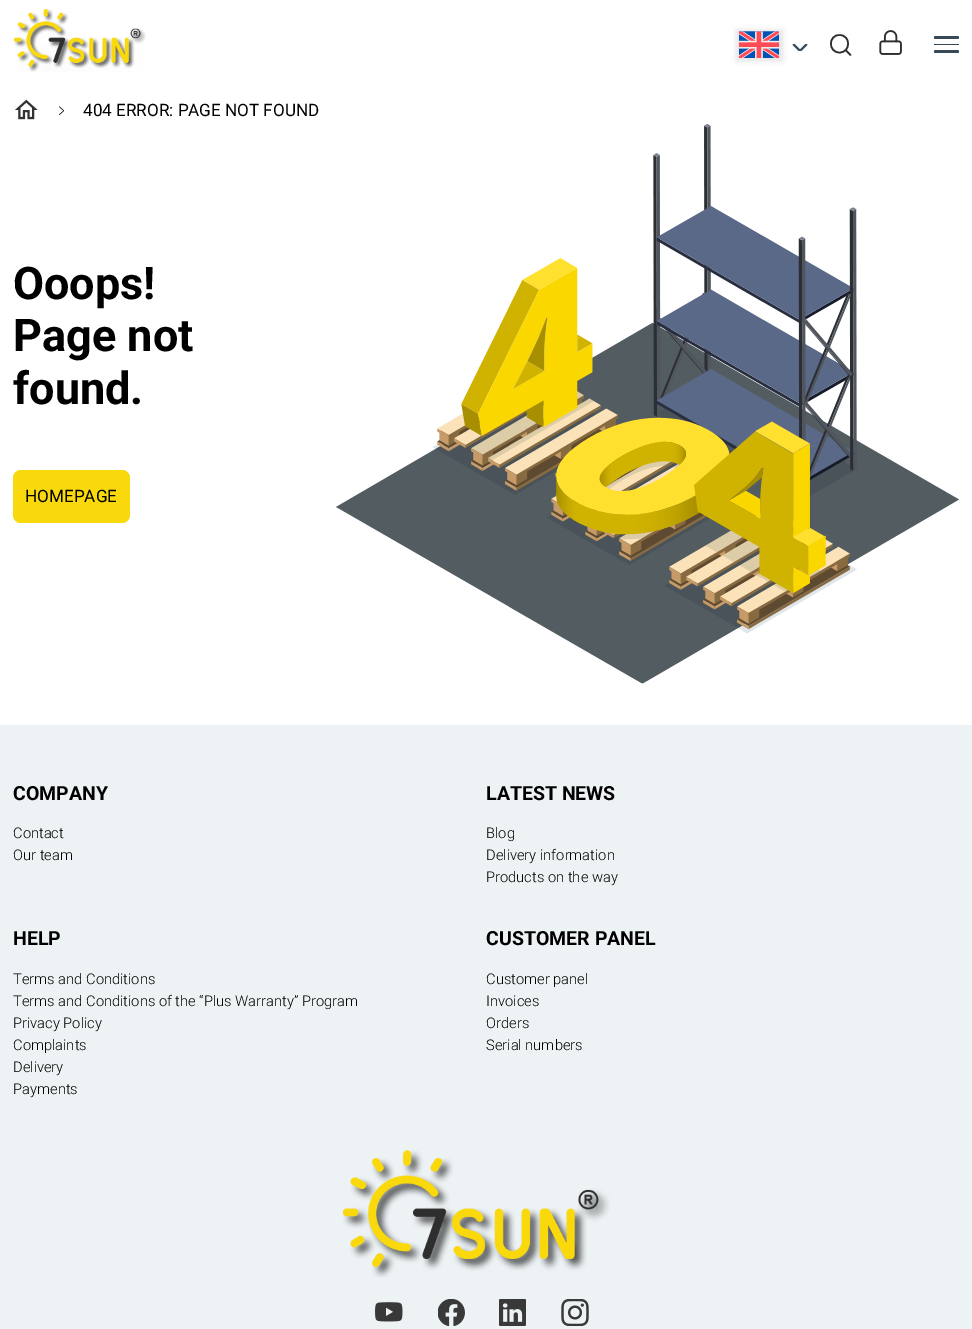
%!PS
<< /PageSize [972 1329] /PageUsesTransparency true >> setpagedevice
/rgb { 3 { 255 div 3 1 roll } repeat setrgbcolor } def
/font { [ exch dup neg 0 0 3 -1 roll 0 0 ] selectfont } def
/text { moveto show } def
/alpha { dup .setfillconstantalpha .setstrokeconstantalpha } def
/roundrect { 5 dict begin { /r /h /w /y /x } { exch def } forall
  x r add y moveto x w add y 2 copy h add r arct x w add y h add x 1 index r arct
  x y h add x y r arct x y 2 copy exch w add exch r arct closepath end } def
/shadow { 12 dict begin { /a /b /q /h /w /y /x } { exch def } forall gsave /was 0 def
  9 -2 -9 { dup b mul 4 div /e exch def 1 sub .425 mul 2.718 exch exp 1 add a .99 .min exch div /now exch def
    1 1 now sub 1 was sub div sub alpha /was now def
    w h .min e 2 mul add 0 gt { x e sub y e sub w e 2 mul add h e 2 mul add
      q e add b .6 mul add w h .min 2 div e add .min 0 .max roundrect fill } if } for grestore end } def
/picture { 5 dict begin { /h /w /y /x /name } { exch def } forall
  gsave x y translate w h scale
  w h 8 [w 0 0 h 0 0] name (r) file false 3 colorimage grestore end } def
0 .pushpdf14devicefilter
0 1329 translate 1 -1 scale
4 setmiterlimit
255 255 255 rgb
0 0 972 1329 rectfill
(img_01.rgb) 14 9 132 63 picture
0 0 0 rgb
736 30 47 31 0 2.5 0.1 shadow
(img_02.rgb) 739 31 40 27 picture
(img_03.rgb) 792 44 16 7 picture
46 46 46 rgb
1.6 setlinewidth
1 setlinecap
1 setlinejoin
839.5 52.5 moveto 11.5 0 11.5 -17.5 0 -17.5 rcurveto -11.5 0 -11.5 17.5 0 17.5 rcurveto closepath 850.5 55 moveto -5 -5 rlineto stroke
(img_04.rgb) 879 30 23 25 picture
55 73 87 rgb
934 36 25 3 1.5 roundrect fill
934 44 25 1 0.5 roundrect fill
934 50 25 3 1.5 roundrect fill
(img_05.rgb) 15 99 23 21 picture
(img_06.rgb) 59 106 5 9 picture
249 216 12 rgb
13 470 117 53 8 roundrect fill
(img_07.rgb) 336 124 623 560 picture
237 242 244 rgb
0 725 972 604 rectfill
(img_08.rgb) 342 1150 268 128 picture
(img_09.rgb) 375 1302 28 20 picture
(img_10.rgb) 438 1299 27 27 picture
(img_11.rgb) 499 1299 27 27 picture
(img_12.rgb) 561 1299 28 27 picture
/Roboto-Regular 17.1 font
0 0 0 rgb
(404 ERROR: PAGE NOT FOUND) 83 116 text
/Roboto-Bold 45 font
(Ooops!) 13 299 text
(Page not) 13 351 text
(found.) 13 404 text
/Roboto-Regular 17.1 font
(HOMEPAGE) 25 502 text
/Roboto-Bold 19.5 font
(COMPANY) 13 800 text
/Roboto-Light 14.7 font
(Contact) 13 838 text
(Our team) 13 860 text
/Roboto-Bold 19.5 font
(LATEST NEWS) 486 800 text
/Roboto-Light 14.7 font
(Blog) 486 838 text
(Delivery information) 486 860 text
(Products on the way) 486 882 text
/Roboto-Bold 19.5 font
(HELP) 13 945 text
/Roboto-Light 14.7 font
(Terms and Conditions) 13 984 text
(Terms and Conditions of the “Plus Warranty” Program) 13 1006 text
(Privacy Policy) 13 1028 text
(Complaints) 13 1050 text
(Delivery) 13 1072 text
(Payments) 13 1094 text
/Roboto-Bold 19.5 font
(CUSTOMER PANEL) 486 945 text
/Roboto-Light 14.7 font
(Customer panel) 486 984 text
(Invoices) 486 1006 text
(Orders) 486 1028 text
(Serial numbers) 486 1050 text
.poppdf14devicefilter showpage
